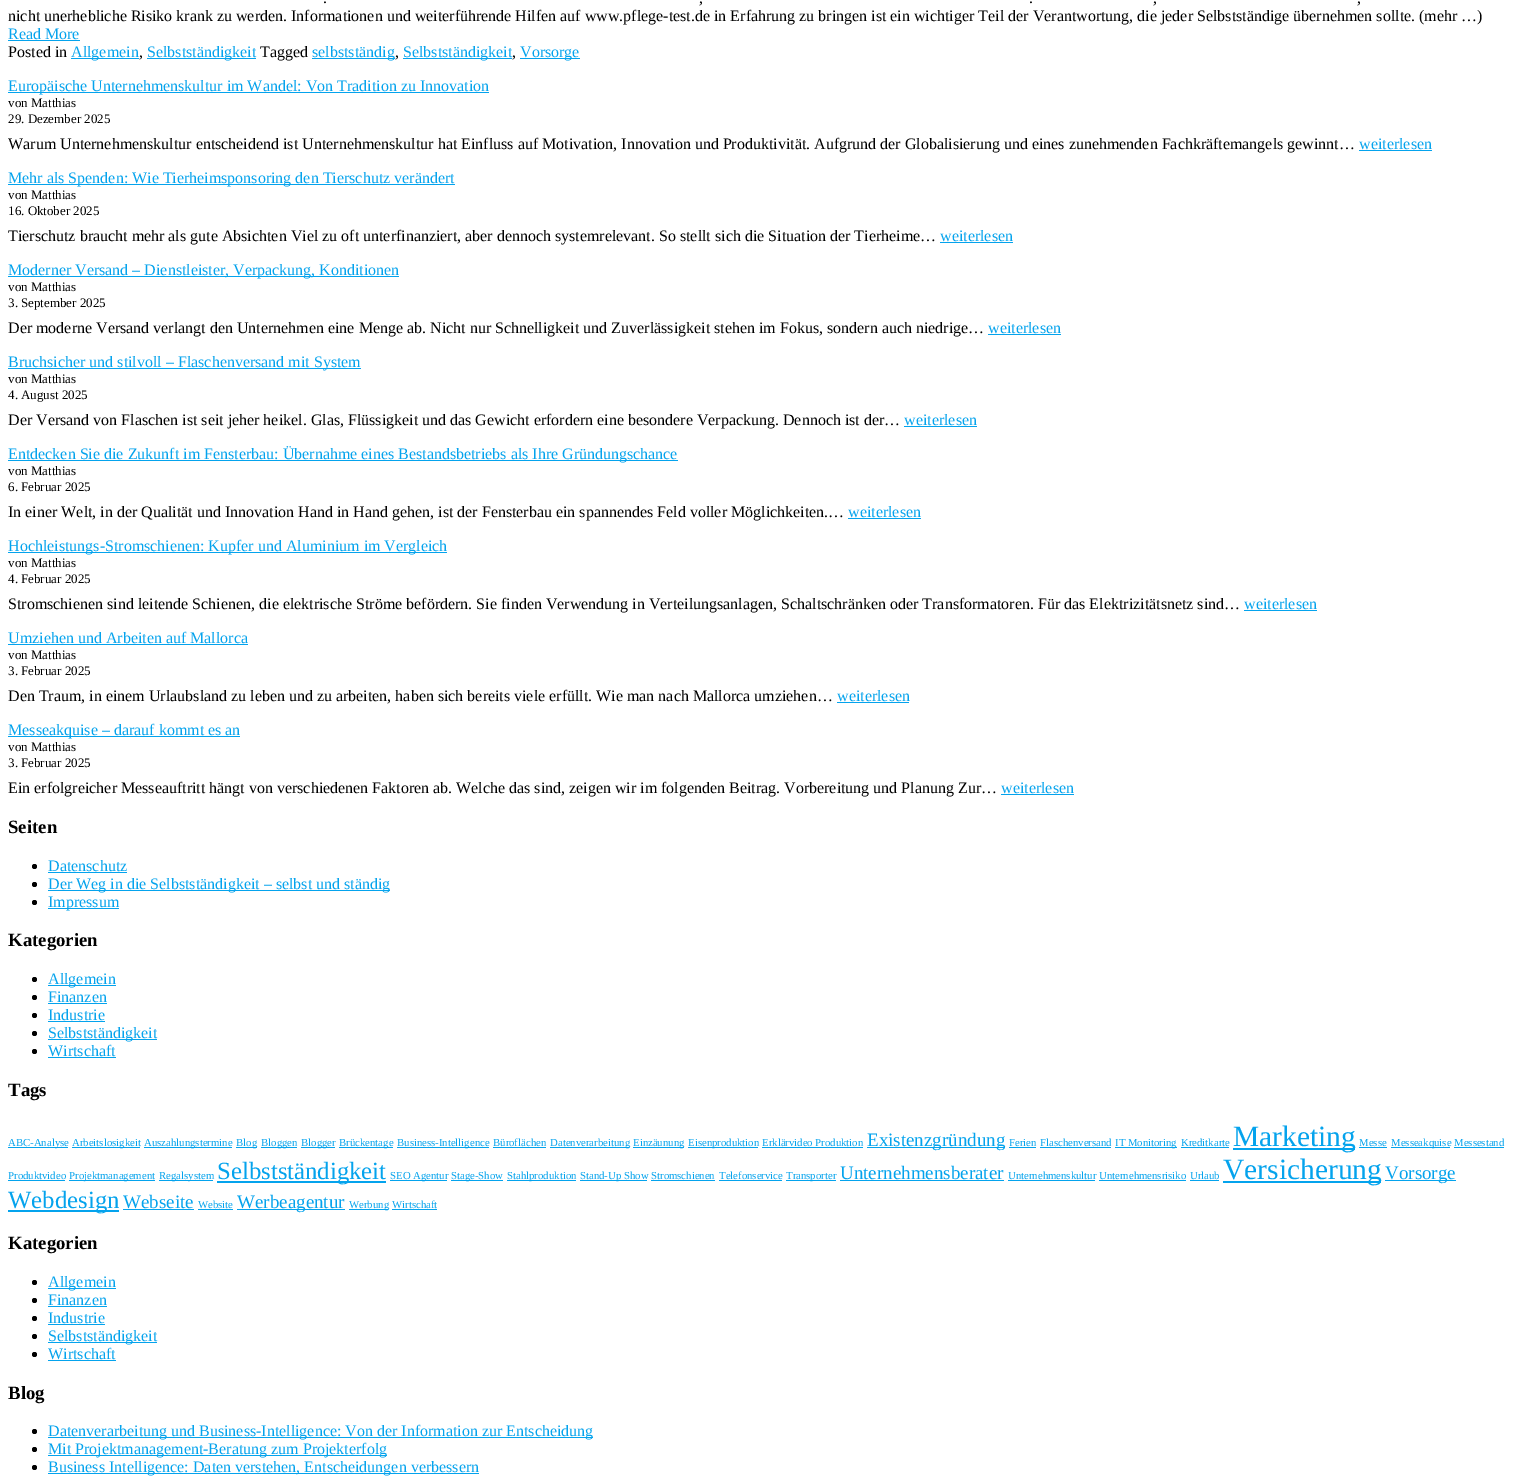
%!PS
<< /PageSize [1514 1476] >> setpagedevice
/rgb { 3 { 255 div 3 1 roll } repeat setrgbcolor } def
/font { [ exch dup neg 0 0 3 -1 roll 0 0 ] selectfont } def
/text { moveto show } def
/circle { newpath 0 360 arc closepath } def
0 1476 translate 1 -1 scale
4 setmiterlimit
255 255 255 rgb
0 0 1514 1476 rectfill
4 163 237 rgb
8 40 72 1 rectfill
71 58 68 1 rectfill
147 58 109 1 rectfill
312 58 83 1 rectfill
403 58 109 1 rectfill
520 58 60 1 rectfill
8 92 481 1 rectfill
1359 150 73 1 rectfill
8 184 447 1 rectfill
940 242 73 1 rectfill
8 276 391 1 rectfill
988 334 73 1 rectfill
8 368 353 1 rectfill
904 426 73 1 rectfill
8 460 670 1 rectfill
848 518 73 1 rectfill
8 552 439 1 rectfill
1244 610 73 1 rectfill
8 644 240 1 rectfill
837 702 72 1 rectfill
8 736 232 1 rectfill
1001 794 73 1 rectfill
0 0 0 rgb
34.5 866.5 2.5 circle fill
4 163 237 rgb
48 872 79 1 rectfill
0 0 0 rgb
34.5 884.5 2.5 circle fill
4 163 237 rgb
48 890 342 1 rectfill
0 0 0 rgb
34.5 902.5 2.5 circle fill
4 163 237 rgb
48 908 71 1 rectfill
0 0 0 rgb
34.5 979.5 2.5 circle fill
4 163 237 rgb
48 985 68 1 rectfill
0 0 0 rgb
34.5 997.5 2.5 circle fill
4 163 237 rgb
48 1003 59 1 rectfill
0 0 0 rgb
34.5 1015.5 2.5 circle fill
4 163 237 rgb
48 1021 57 1 rectfill
0 0 0 rgb
34.5 1033.5 2.5 circle fill
4 163 237 rgb
48 1039 109 1 rectfill
0 0 0 rgb
34.5 1051.5 2.5 circle fill
4 163 237 rgb
48 1057 68 1 rectfill
8 1147 60 1 rectfill
72 1147 68 1 rectfill
144 1147 88 1 rectfill
236 1147 21 1 rectfill
261 1147 36 1 rectfill
301 1147 34 1 rectfill
339 1147 54 1 rectfill
397 1147 92 1 rectfill
493 1147 53 1 rectfill
550 1147 79 1 rectfill
633 1147 51 1 rectfill
688 1147 70 1 rectfill
762 1147 101 1 rectfill
867 1147 138 1 rectfill
1009 1147 27 1 rectfill
1040 1147 71 1 rectfill
1115 1147 62 1 rectfill
1181 1147 48 1 rectfill
1233 1148 122 2 rectfill
1359 1147 28 1 rectfill
1391 1147 59 1 rectfill
1454 1147 50 1 rectfill
8 1180 57 1 rectfill
69 1180 86 1 rectfill
159 1180 54 1 rectfill
217 1181 169 2 rectfill
390 1180 57 1 rectfill
451 1180 52 1 rectfill
507 1180 69 1 rectfill
580 1180 67 1 rectfill
651 1180 64 1 rectfill
719 1180 63 1 rectfill
786 1180 50 1 rectfill
840 1180 164 1 rectfill
1008 1180 87 1 rectfill
1099 1180 87 1 rectfill
1190 1180 29 1 rectfill
1223 1181 158 2 rectfill
1385 1180 71 1 rectfill
8 1210 111 2 rectfill
123 1209 71 1 rectfill
198 1209 35 1 rectfill
237 1209 108 1 rectfill
349 1209 39 1 rectfill
392 1209 45 1 rectfill
0 0 0 rgb
34.5 1282.5 2.5 circle fill
4 163 237 rgb
48 1288 68 1 rectfill
0 0 0 rgb
34.5 1300.5 2.5 circle fill
4 163 237 rgb
48 1306 59 1 rectfill
0 0 0 rgb
34.5 1318.5 2.5 circle fill
4 163 237 rgb
48 1324 57 1 rectfill
0 0 0 rgb
34.5 1336.5 2.5 circle fill
4 163 237 rgb
48 1342 109 1 rectfill
0 0 0 rgb
34.5 1354.5 2.5 circle fill
4 163 237 rgb
48 1360 68 1 rectfill
0 0 0 rgb
34.5 1431.5 2.5 circle fill
4 163 237 rgb
48 1437 545 1 rectfill
0 0 0 rgb
34.5 1449.5 2.5 circle fill
4 163 237 rgb
48 1455 339 1 rectfill
0 0 0 rgb
34.5 1467.5 2.5 circle fill
4 163 237 rgb
48 1473 431 1 rectfill
/LiberationSerif-Regular 16 font
0 0 0 rgb
(.) 323 3 text
(,) 699 3 text
(.) 1029 3 text
(,) 1153 3 text
(,) 1357 3 text
(nicht unerhebliche Risiko krank zu werden. Informationen und weiterführende Hilfen auf www.pflege-test.de in Erfahrung zu bringen ist ein wichtiger Teil der Verantwortung, die jeder Selbstständige übernehmen sollte. \(mehr …\)) 8 21 text
4 163 237 rgb
(Read More) 8 39 text
0 0 0 rgb
(Posted in) 8 57 text
4 163 237 rgb
(Allgemein) 71 57 text
0 0 0 rgb
(,) 139 57 text
4 163 237 rgb
(Selbstständigkeit) 147 57 text
0 0 0 rgb
(Tagged) 260 57 text
4 163 237 rgb
(selbstständig) 312 57 text
0 0 0 rgb
(,) 395 57 text
4 163 237 rgb
(Selbstständigkeit) 403 57 text
0 0 0 rgb
(,) 512 57 text
4 163 237 rgb
(Vorsorge) 520 57 text
(Europäische Unternehmenskultur im Wandel: Von Tradition zu Innovation) 8 91 text
/LiberationSerif-Regular 13 font
0 0 0 rgb
(von Matthias) 8 107 text
(29. Dezember 2025) 8 123 text
/LiberationSerif-Regular 16 font
(Warum Unternehmenskultur entscheidend ist Unternehmenskultur hat Einfluss auf Motivation, Innovation und Produktivität. Aufgrund der Globalisierung und eines zunehmenden Fachkräftemangels gewinnt…) 8 149 text
4 163 237 rgb
(weiterlesen) 1359 149 text
(Mehr als Spenden: Wie Tierheimsponsoring den Tierschutz verändert) 8 183 text
/LiberationSerif-Regular 13 font
0 0 0 rgb
(von Matthias) 8 199 text
(16. Oktober 2025) 8 215 text
/LiberationSerif-Regular 16 font
(Tierschutz braucht mehr als gute Absichten Viel zu oft unterfinanziert, aber dennoch systemrelevant. So stellt sich die Situation der Tierheime…) 8 241 text
4 163 237 rgb
(weiterlesen) 940 241 text
(Moderner Versand – Dienstleister, Verpackung, Konditionen) 8 275 text
/LiberationSerif-Regular 13 font
0 0 0 rgb
(von Matthias) 8 291 text
(3. September 2025) 8 307 text
/LiberationSerif-Regular 16 font
(Der moderne Versand verlangt den Unternehmen eine Menge ab. Nicht nur Schnelligkeit und Zuverlässigkeit stehen im Fokus, sondern auch niedrige…) 8 333 text
4 163 237 rgb
(weiterlesen) 988 333 text
(Bruchsicher und stilvoll – Flaschenversand mit System) 8 367 text
/LiberationSerif-Regular 13 font
0 0 0 rgb
(von Matthias) 8 383 text
(4. August 2025) 8 399 text
/LiberationSerif-Regular 16 font
(Der Versand von Flaschen ist seit jeher heikel. Glas, Flüssigkeit und das Gewicht erfordern eine besondere Verpackung. Dennoch ist der…) 8 425 text
4 163 237 rgb
(weiterlesen) 904 425 text
(Entdecken Sie die Zukunft im Fensterbau: Übernahme eines Bestandsbetriebs als Ihre Gründungschance) 8 459 text
/LiberationSerif-Regular 13 font
0 0 0 rgb
(von Matthias) 8 475 text
(6. Februar 2025) 8 491 text
/LiberationSerif-Regular 16 font
(In einer Welt, in der Qualität und Innovation Hand in Hand gehen, ist der Fensterbau ein spannendes Feld voller Möglichkeiten.…) 8 517 text
4 163 237 rgb
(weiterlesen) 848 517 text
(Hochleistungs-Stromschienen: Kupfer und Aluminium im Vergleich) 8 551 text
/LiberationSerif-Regular 13 font
0 0 0 rgb
(von Matthias) 8 567 text
(4. Februar 2025) 8 583 text
/LiberationSerif-Regular 16 font
(Stromschienen sind leitende Schienen, die elektrische Ströme befördern. Sie finden Verwendung in Verteilungsanlagen, Schaltschränken oder Transformatoren. Für das Elektrizitätsnetz sind…) 8 609 text
4 163 237 rgb
(weiterlesen) 1244 609 text
(Umziehen und Arbeiten auf Mallorca) 8 643 text
/LiberationSerif-Regular 13 font
0 0 0 rgb
(von Matthias) 8 659 text
(3. Februar 2025) 8 675 text
/LiberationSerif-Regular 16 font
(Den Traum, in einem Urlaubsland zu leben und zu arbeiten, haben sich bereits viele erfüllt. Wie man nach Mallorca umziehen…) 8 701 text
4 163 237 rgb
(weiterlesen) 837 701 text
(Messeakquise – darauf kommt es an) 8 735 text
/LiberationSerif-Regular 13 font
0 0 0 rgb
(von Matthias) 8 751 text
(3. Februar 2025) 8 767 text
/LiberationSerif-Regular 16 font
(Ein erfolgreicher Messeauftritt hängt von verschiedenen Faktoren ab. Welche das sind, zeigen wir im folgenden Beitrag. Vorbereitung und Planung Zur…) 8 793 text
4 163 237 rgb
(weiterlesen) 1001 793 text
/LiberationSerif-Bold 18.75 font
0 0 0 rgb
(Seiten) 8 833 text
/LiberationSerif-Regular 16 font
4 163 237 rgb
(Datenschutz) 48 871 text
(Der Weg in die Selbstständigkeit – selbst und ständig) 48 889 text
(Impressum) 48 907 text
/LiberationSerif-Bold 18.75 font
0 0 0 rgb
(Kategorien) 8 946 text
/LiberationSerif-Regular 16 font
4 163 237 rgb
(Allgemein) 48 984 text
(Finanzen) 48 1002 text
(Industrie) 48 1020 text
(Selbstständigkeit) 48 1038 text
(Wirtschaft) 48 1056 text
/LiberationSerif-Bold 18.75 font
0 0 0 rgb
(Tags) 8 1096 text
/LiberationSerif-Regular 10.75 font
4 163 237 rgb
(ABC-Analyse) 8 1146 text
(Arbeitslosigkeit) 72 1146 text
(Auszahlungstermine) 144 1146 text
(Blog) 236 1146 text
(Bloggen) 261 1146 text
(Blogger) 301 1146 text
(Brückentage) 339 1146 text
(Business-Intelligence) 397 1146 text
(Büroflächen) 493 1146 text
(Datenverarbeitung) 550 1146 text
(Einzäunung) 633 1146 text
(Eisenproduktion) 688 1146 text
(Erklärvideo Produktion) 762 1146 text
/LiberationSerif-Regular 19 font
(Existenzgründung) 867 1146 text
/LiberationSerif-Regular 10.75 font
(Ferien) 1009 1146 text
(Flaschenversand) 1040 1146 text
(IT Monitoring) 1115 1146 text
(Kreditkarte) 1181 1146 text
/LiberationSerif-Regular 29.5 font
(Marketing) 1233 1146 text
/LiberationSerif-Regular 10.75 font
(Messe) 1359 1146 text
(Messeakquise) 1391 1146 text
(Messestand) 1454 1146 text
(Produktvideo) 8 1179 text
(Projektmanagement) 69 1179 text
(Regalsystem) 159 1179 text
/LiberationSerif-Regular 24.75 font
(Selbstständigkeit) 217 1179 text
/LiberationSerif-Regular 10.75 font
(SEO Agentur) 390 1179 text
(Stage-Show) 451 1179 text
(Stahlproduktion) 507 1179 text
(Stand-Up Show) 580 1179 text
(Stromschienen) 651 1179 text
(Telefonservice) 719 1179 text
(Transporter) 786 1179 text
/LiberationSerif-Regular 19 font
(Unternehmensberater) 840 1179 text
/LiberationSerif-Regular 10.75 font
(Unternehmenskultur) 1008 1179 text
(Unternehmensrisiko) 1099 1179 text
(Urlaub) 1190 1179 text
/LiberationSerif-Regular 29.5 font
(Versicherung) 1223 1179 text
/LiberationSerif-Regular 19 font
(Vorsorge) 1385 1179 text
/LiberationSerif-Regular 24.75 font
(Webdesign) 8 1208 text
/LiberationSerif-Regular 19 font
(Webseite) 123 1208 text
/LiberationSerif-Regular 10.75 font
(Website) 198 1208 text
/LiberationSerif-Regular 19 font
(Werbeagentur) 237 1208 text
/LiberationSerif-Regular 10.75 font
(Werbung) 349 1208 text
(Wirtschaft) 392 1208 text
/LiberationSerif-Bold 18.75 font
0 0 0 rgb
(Kategorien) 8 1249 text
/LiberationSerif-Regular 16 font
4 163 237 rgb
(Allgemein) 48 1287 text
(Finanzen) 48 1305 text
(Industrie) 48 1323 text
(Selbstständigkeit) 48 1341 text
(Wirtschaft) 48 1359 text
/LiberationSerif-Bold 18.75 font
0 0 0 rgb
(Blog) 8 1399 text
/LiberationSerif-Regular 16 font
4 163 237 rgb
(Datenverarbeitung und Business-Intelligence: Von der Information zur Entscheidung) 48 1436 text
(Mit Projektmanagement-Beratung zum Projekterfolg) 48 1454 text
(Business Intelligence: Daten verstehen, Entscheidungen verbessern) 48 1472 text
showpage
